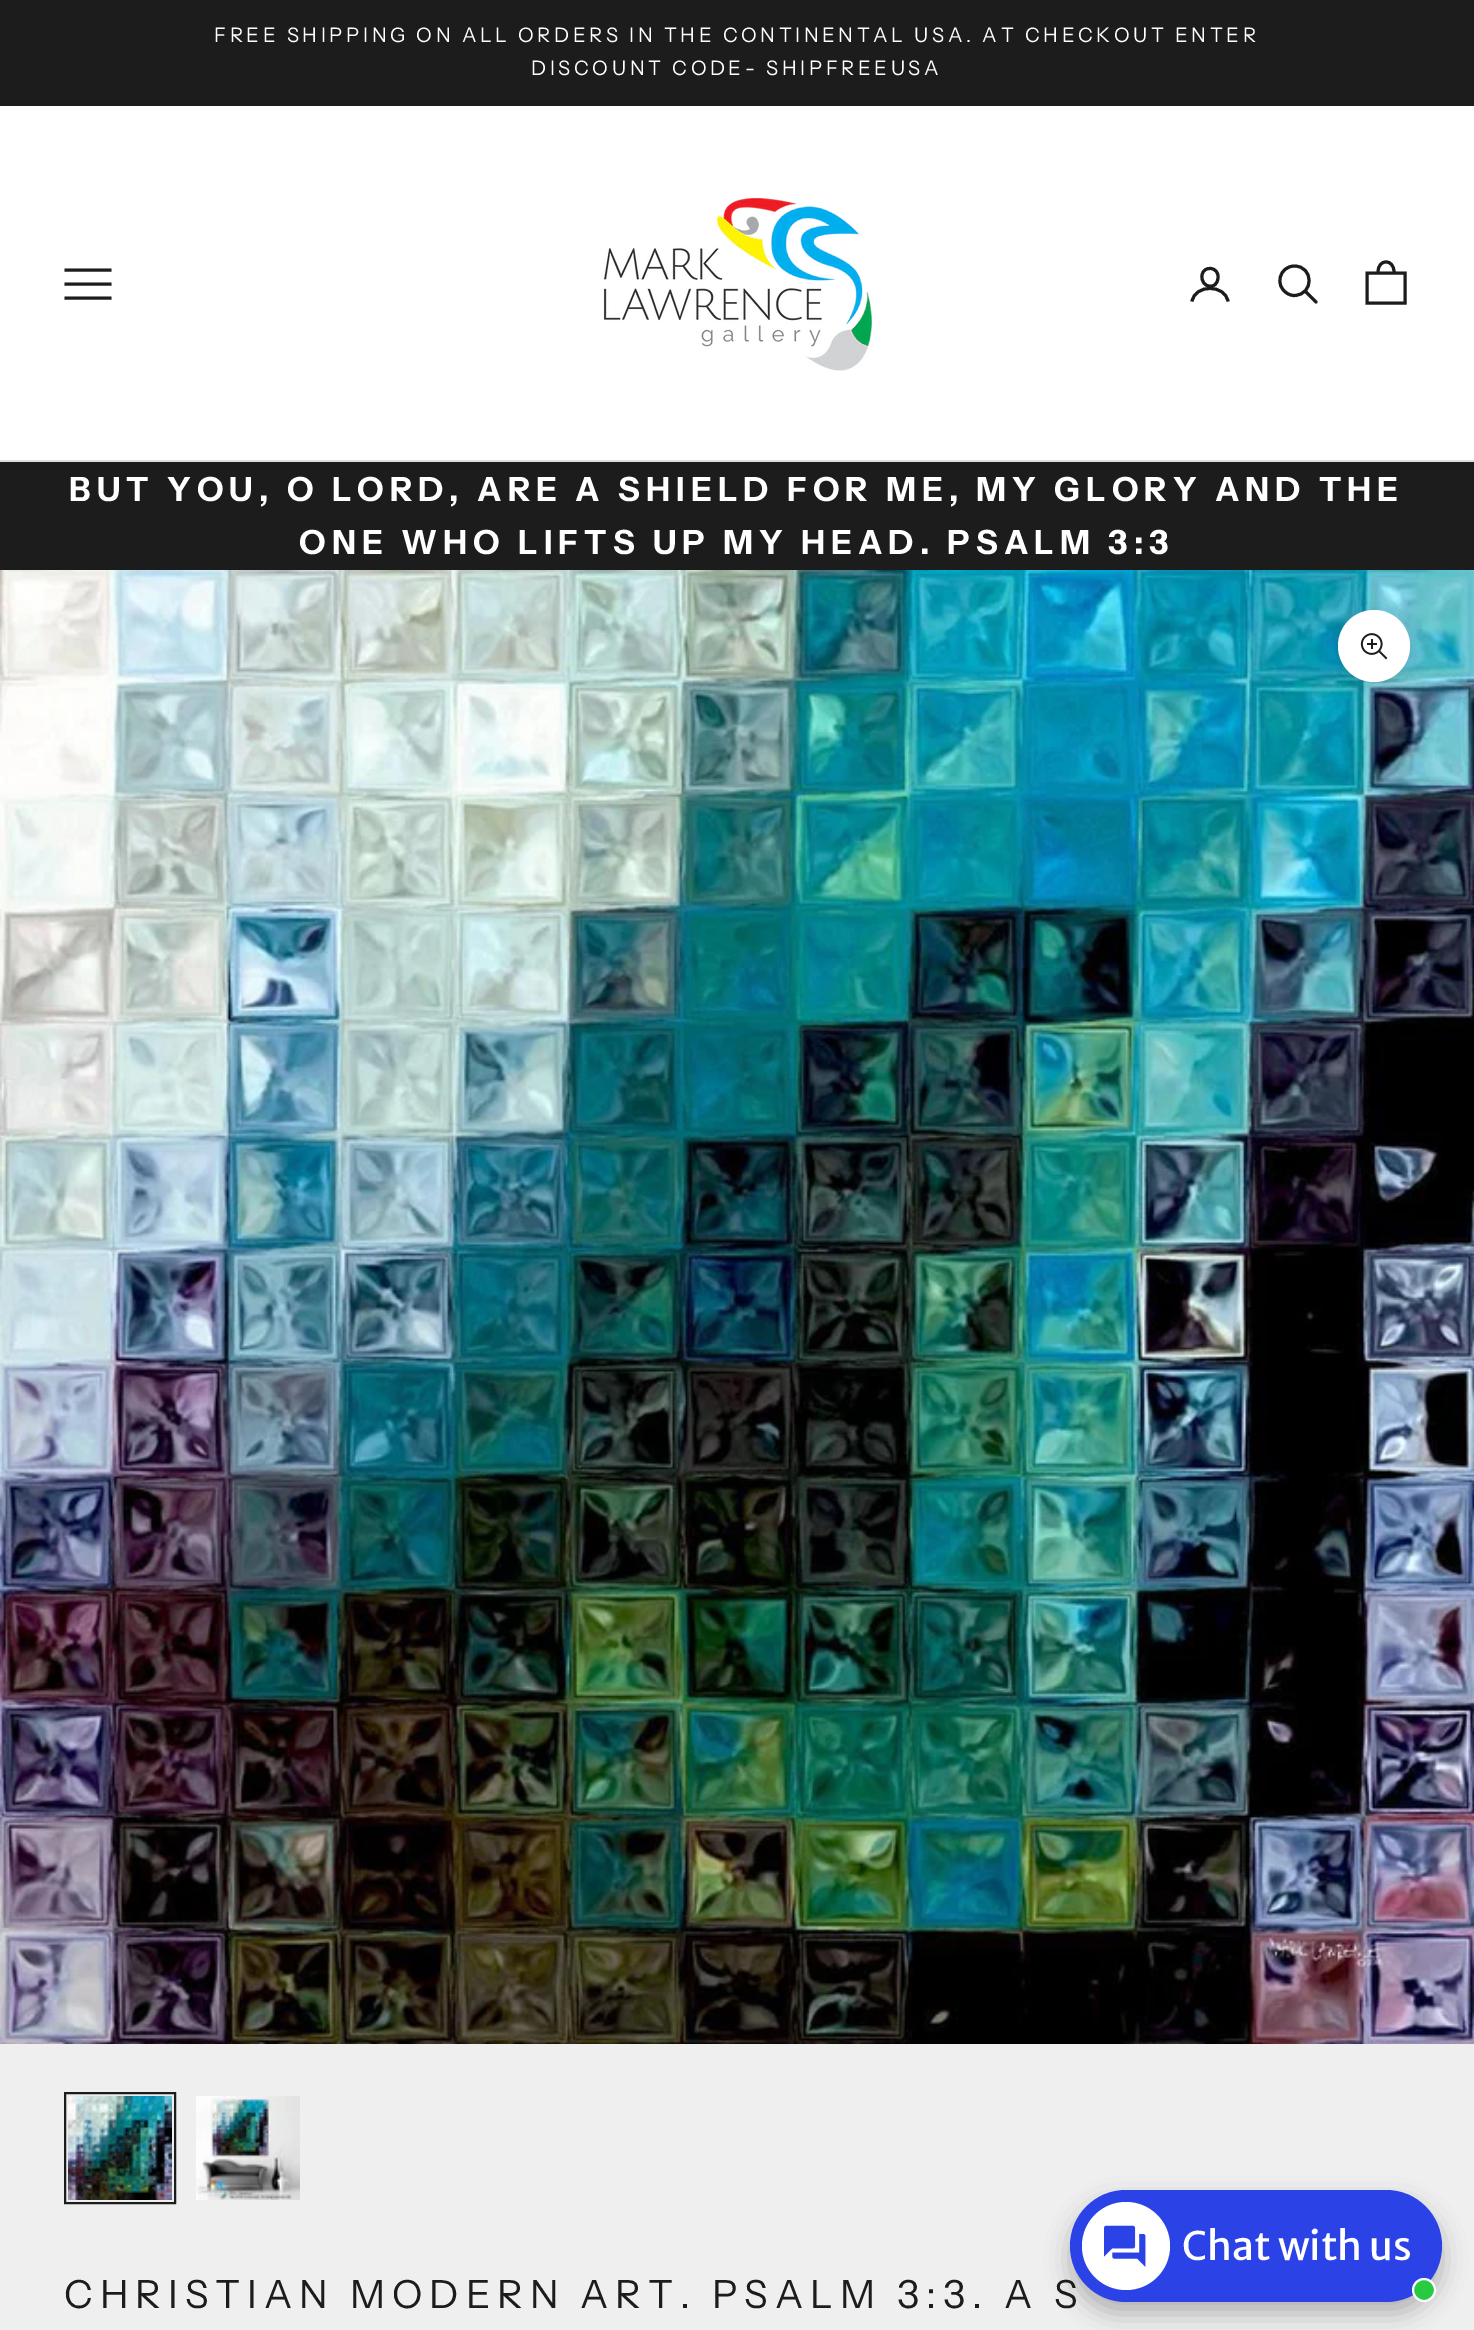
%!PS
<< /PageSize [1474 2330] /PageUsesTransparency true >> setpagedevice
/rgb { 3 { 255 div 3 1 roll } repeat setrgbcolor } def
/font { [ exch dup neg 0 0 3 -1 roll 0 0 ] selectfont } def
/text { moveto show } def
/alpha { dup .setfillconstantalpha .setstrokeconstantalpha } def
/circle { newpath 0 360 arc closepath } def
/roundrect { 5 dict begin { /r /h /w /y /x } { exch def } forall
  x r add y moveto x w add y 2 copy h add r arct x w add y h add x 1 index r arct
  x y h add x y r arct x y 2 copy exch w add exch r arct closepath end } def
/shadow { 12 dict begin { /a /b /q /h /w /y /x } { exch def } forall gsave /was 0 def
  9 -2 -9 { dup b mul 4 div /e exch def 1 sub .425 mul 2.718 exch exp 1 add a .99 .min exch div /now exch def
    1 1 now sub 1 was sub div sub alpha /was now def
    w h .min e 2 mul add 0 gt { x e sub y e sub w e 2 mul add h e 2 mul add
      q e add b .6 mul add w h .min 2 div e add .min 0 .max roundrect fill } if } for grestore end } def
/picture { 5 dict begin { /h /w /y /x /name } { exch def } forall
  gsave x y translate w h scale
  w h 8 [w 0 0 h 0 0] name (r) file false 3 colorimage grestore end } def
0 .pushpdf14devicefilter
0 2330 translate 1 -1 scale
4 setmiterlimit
239 239 239 rgb
0 0 1474 2330 rectfill
28 28 28 rgb
0 0 1474 106 rectfill
255 255 255 rgb
0 106 1474 354 rectfill
221 221 221 rgb
0 460 1474 2 rectfill
28 28 28 rgb
3 setlinewidth
2 setlinecap
66 298 moveto 44 0 rlineto 66 284 moveto 44 0 rlineto 66 270 moveto 44 0 rlineto stroke
(img_01.rgb) 603 197 270 174 picture
1 setlinecap
1 setlinejoin
1218 277.5 moveto -0.5 13.5 -17.5 10.5 -16 -2 rcurveto 1 -10.5 17 -9 16 2 rcurveto closepath stroke
0 setlinecap
0 setlinejoin
1192 301.5 moveto 3 -17.5 33 -17.5 36 0 rcurveto stroke
1294.5 266 moveto -15 0 -20.5 20 -7 27.5 rcurveto 2 1.5 4.5 2 7 2 rcurveto 20 -1 19 -29.5 0 -29.5 rcurveto closepath stroke
1 setlinecap
1305.5 291.5 moveto 10.5 10.5 rlineto stroke
0 setlinecap
1405 303 moveto 0 -30 rlineto -38 0 rlineto 0 30 rlineto closepath 1378 272 moveto 0 -13.5 16 -13.5 16 0 rcurveto stroke
0 462 1474 108 rectfill
(img_02.rgb) 0 570 1474 1474 picture
1338 614 72 72 36 10 0.15 shadow
255 255 255 rgb
1374 646 36 circle fill
(img_03.rgb) 1360 633 28 27 picture
28 28 28 rgb
2 setlinewidth
65 2093 110 110 rectstroke
(img_04.rgb) 68 2096 104 104 picture
(img_05.rgb) 196 2096 104 104 picture
0 0 0 rgb
1070 2202 372 112 56 12 0.25 shadow
/InstrumentSans-Regular 20 font
255 255 255 rgb
214 42 moveto 3.6 0 (FREE SHIPPING ON ALL ORDERS IN THE CONTINENTAL USA. AT CHECKOUT ENTER) ashow
531 75 moveto 3.6 0 (DISCOUNT CODE- SHIPFREEUSA) ashow
/InstrumentSans-Bold 33.4 font
69 501 moveto 6 0 (BUT YOU, O LORD, ARE A SHIELD FOR ME, MY GLORY AND THE) ashow
299 554 moveto 6 0 (ONE WHO LIFTS UP MY HEAD. PSALM 3:3) ashow
/InstrumentSans-Regular 38.8 font
28 28 28 rgb
64 2308 moveto 7 0 (CHRISTIAN MODERN ART. PSALM 3:3. A S) ashow
43 66 231 rgb
1070 2190 372 112 56 roundrect fill
255 255 255 rgb
1126 2246 44 circle fill
(img_06.rgb) 1104 2225 42 42 picture
/MerriweatherSans-Regular 39.25 font
(Chat with us) 1182 2260 text
39 202 64 rgb
1424 2290 11 circle gsave fill grestore
255 255 255 rgb
stroke
.poppdf14devicefilter showpage
